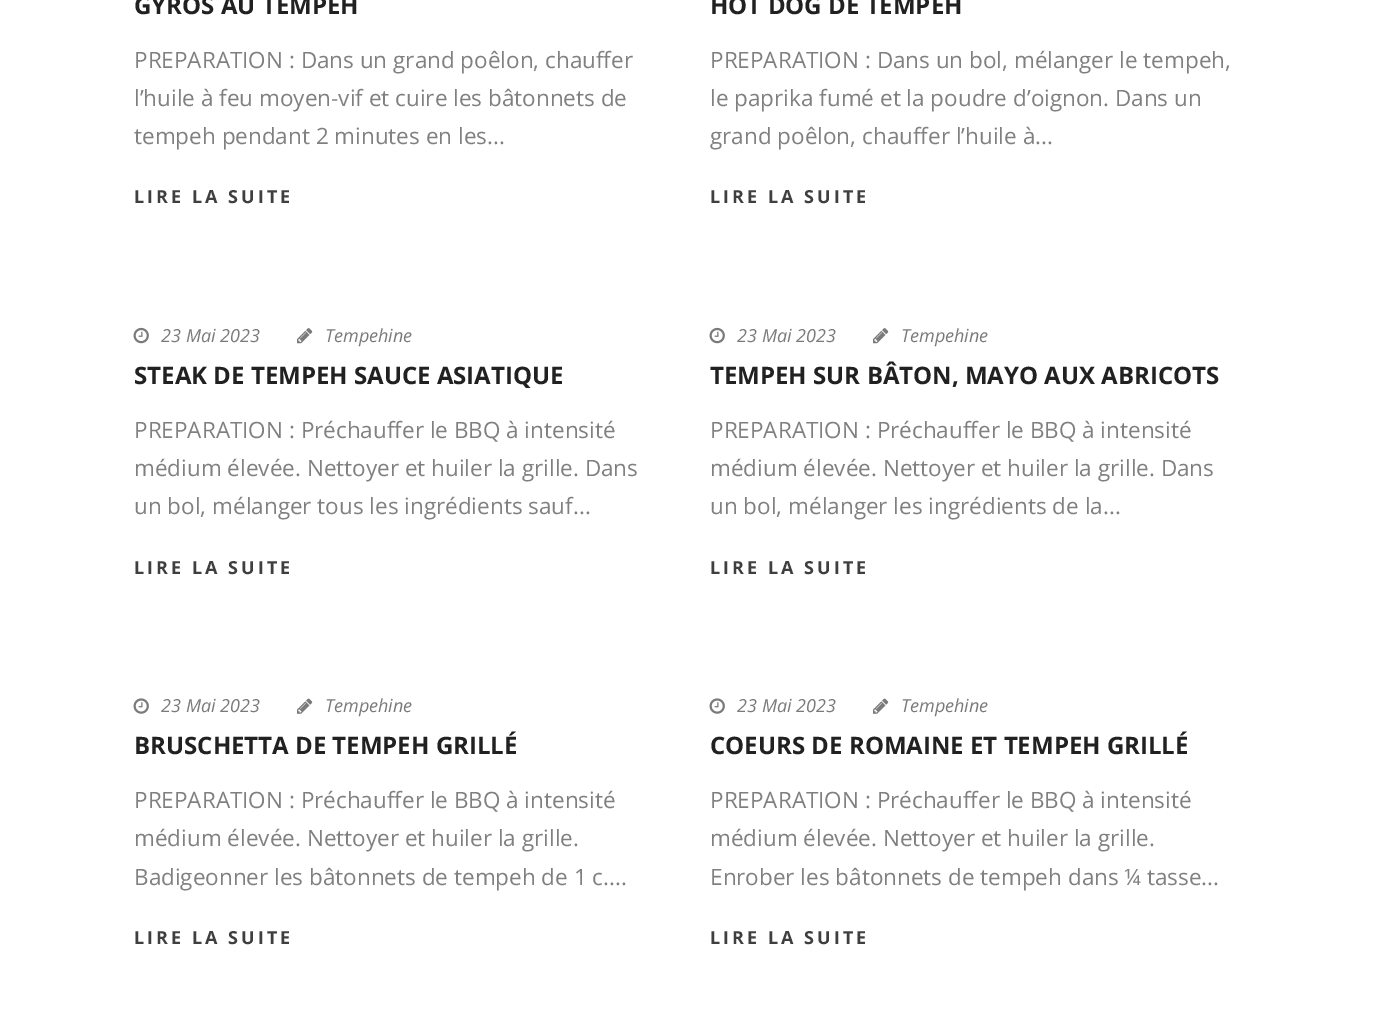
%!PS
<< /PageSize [1373 1020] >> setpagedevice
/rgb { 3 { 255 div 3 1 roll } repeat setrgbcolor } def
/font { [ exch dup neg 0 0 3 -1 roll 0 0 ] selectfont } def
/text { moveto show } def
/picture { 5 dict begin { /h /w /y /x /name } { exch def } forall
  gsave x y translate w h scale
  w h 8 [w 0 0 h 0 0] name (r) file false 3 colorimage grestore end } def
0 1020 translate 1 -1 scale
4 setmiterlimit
255 255 255 rgb
0 0 1373 1020 rectfill
(img_01.rgb) 133 327 16 17 picture
(img_02.rgb) 297 328 16 16 picture
(img_01.rgb) 709 327 16 17 picture
(img_02.rgb) 873 328 16 16 picture
(img_03.rgb) 133 698 16 16 picture
(img_04.rgb) 297 698 16 16 picture
(img_03.rgb) 709 698 16 16 picture
(img_04.rgb) 873 698 16 16 picture
/OpenSans-Bold 24 font
33 33 33 rgb
(GYROS AU TEMPEH) 134 14 text
/OpenSans-Regular 22.5 font
128 128 128 rgb
(PREPARATION : Dans un grand poêlon, chauffer) 134 68 text
(l’huile à feu moyen-vif et cuire les bâtonnets de) 134 106 text
(tempeh pendant 2 minutes en les...) 134 144 text
/OpenSans-Bold 18 font
63 63 63 rgb
134 203 moveto 3 0 (LIRE LA SUITE) ashow
/OpenSans-Bold 24 font
33 33 33 rgb
(HOT DOG DE TEMPEH) 710 14 text
/OpenSans-Regular 22.5 font
128 128 128 rgb
(PREPARATION : Dans un bol, mélanger le tempeh,) 710 68 text
(le paprika fumé et la poudre d’oignon. Dans un) 710 106 text
(grand poêlon, chauffer l’huile à...) 710 144 text
/OpenSans-Bold 18 font
63 63 63 rgb
710 203 moveto 3 0 (LIRE LA SUITE) ashow
/OpenSans-Italic 18 font
122 122 122 rgb
(23 Mai 2023) 161 342 text
(Tempehine) 325 342 text
/OpenSans-Bold 24 font
33 33 33 rgb
(STEAK DE TEMPEH SAUCE ASIATIQUE) 134 384 text
/OpenSans-Regular 22.5 font
128 128 128 rgb
(PREPARATION : Préchauffer le BBQ à intensité) 134 438 text
(médium élevée. Nettoyer et huiler la grille. Dans) 134 476 text
(un bol, mélanger tous les ingrédients sauf...) 134 514 text
/OpenSans-Bold 18 font
63 63 63 rgb
134 574 moveto 3 0 (LIRE LA SUITE) ashow
/OpenSans-Italic 18 font
122 122 122 rgb
(23 Mai 2023) 737 342 text
(Tempehine) 901 342 text
/OpenSans-Bold 24 font
33 33 33 rgb
(TEMPEH SUR BÂTON, MAYO AUX ABRICOTS) 710 384 text
/OpenSans-Regular 22.5 font
128 128 128 rgb
(PREPARATION : Préchauffer le BBQ à intensité) 710 438 text
(médium élevée. Nettoyer et huiler la grille. Dans) 710 476 text
(un bol, mélanger les ingrédients de la...) 710 514 text
/OpenSans-Bold 18 font
63 63 63 rgb
710 574 moveto 3 0 (LIRE LA SUITE) ashow
/OpenSans-Italic 18 font
122 122 122 rgb
(23 Mai 2023) 161 712 text
(Tempehine) 325 712 text
/OpenSans-Bold 24 font
33 33 33 rgb
(BRUSCHETTA DE TEMPEH GRILLÉ) 134 754 text
/OpenSans-Regular 22.5 font
128 128 128 rgb
(PREPARATION : Préchauffer le BBQ à intensité) 134 808 text
(médium élevée. Nettoyer et huiler la grille.) 134 846 text
(Badigeonner les bâtonnets de tempeh de 1 c....) 134 885 text
/OpenSans-Bold 18 font
63 63 63 rgb
134 944 moveto 3 0 (LIRE LA SUITE) ashow
/OpenSans-Italic 18 font
122 122 122 rgb
(23 Mai 2023) 737 712 text
(Tempehine) 901 712 text
/OpenSans-Bold 24 font
33 33 33 rgb
(COEURS DE ROMAINE ET TEMPEH GRILLÉ) 710 754 text
/OpenSans-Regular 22.5 font
128 128 128 rgb
(PREPARATION : Préchauffer le BBQ à intensité) 710 808 text
(médium élevée. Nettoyer et huiler la grille.) 710 846 text
(Enrober les bâtonnets de tempeh dans ¼ tasse...) 710 885 text
/OpenSans-Bold 18 font
63 63 63 rgb
710 944 moveto 3 0 (LIRE LA SUITE) ashow
showpage
